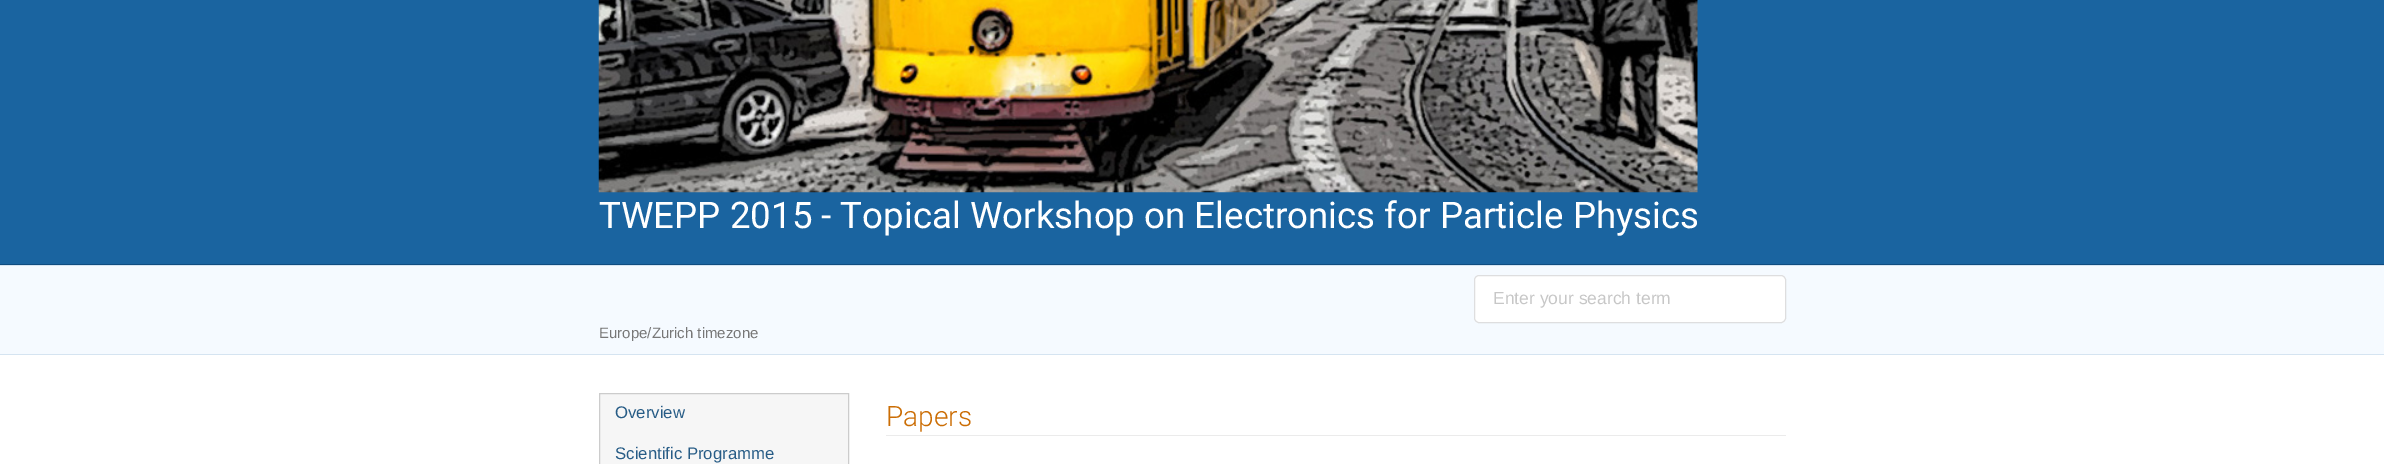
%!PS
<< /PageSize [2384 464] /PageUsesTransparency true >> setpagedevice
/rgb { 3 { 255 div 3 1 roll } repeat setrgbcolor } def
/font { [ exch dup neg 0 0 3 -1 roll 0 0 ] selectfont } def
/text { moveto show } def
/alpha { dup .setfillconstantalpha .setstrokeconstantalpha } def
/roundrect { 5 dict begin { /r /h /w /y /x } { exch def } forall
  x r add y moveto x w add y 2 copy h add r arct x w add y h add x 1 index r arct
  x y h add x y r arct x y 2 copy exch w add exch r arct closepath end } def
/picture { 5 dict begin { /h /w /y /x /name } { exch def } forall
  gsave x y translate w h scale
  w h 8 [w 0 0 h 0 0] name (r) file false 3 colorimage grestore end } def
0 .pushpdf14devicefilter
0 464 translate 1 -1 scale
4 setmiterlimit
255 255 255 rgb
0 0 2384 464 rectfill
26 100 160 rgb
0 0 2384 264 rectfill
15 76 128 rgb
0 264 2384 1 rectfill
(img_01.rgb) 598 0 1100 193 picture
245 250 255 rgb
0 266 2384 88 rectfill
213 228 241 rgb
0 265 2384 1 rectfill
0 354 2384 1 rectfill
255 255 255 rgb
1474 275 312 48 5 roundrect fill
0.15 alpha
34 36 38 rgb
1474.5 275.5 311 47 4.5 roundrect stroke
1 alpha
246 246 246 rgb
599.5 393.5 moveto 249 0 rlineto 0 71 rlineto -249 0 rlineto closepath gsave fill grestore
204 204 204 rgb
stroke
235 235 235 rgb
886 435 900 1 rectfill
/Roboto-Regular 36.7 font
255 255 255 rgb
(TWEPP 2015 - Topical Workshop on Electronics for Particle Physics) 599 228 text
/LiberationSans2-Regular 17.5 font
199 199 199 rgb
(Enter your search term) 1493 304 text
/LiberationSans-Regular 15 font
119 119 119 rgb
(Europe/Zurich timezone) 599 338 text
/LiberationSans2-Regular 16.75 font
39 92 134 rgb
(Overview) 615 418 text
(Scientific Programme) 615 459 text
/Roboto-Light 28 font
203 109 4 rgb
(Papers) 886 426 text
.poppdf14devicefilter showpage
